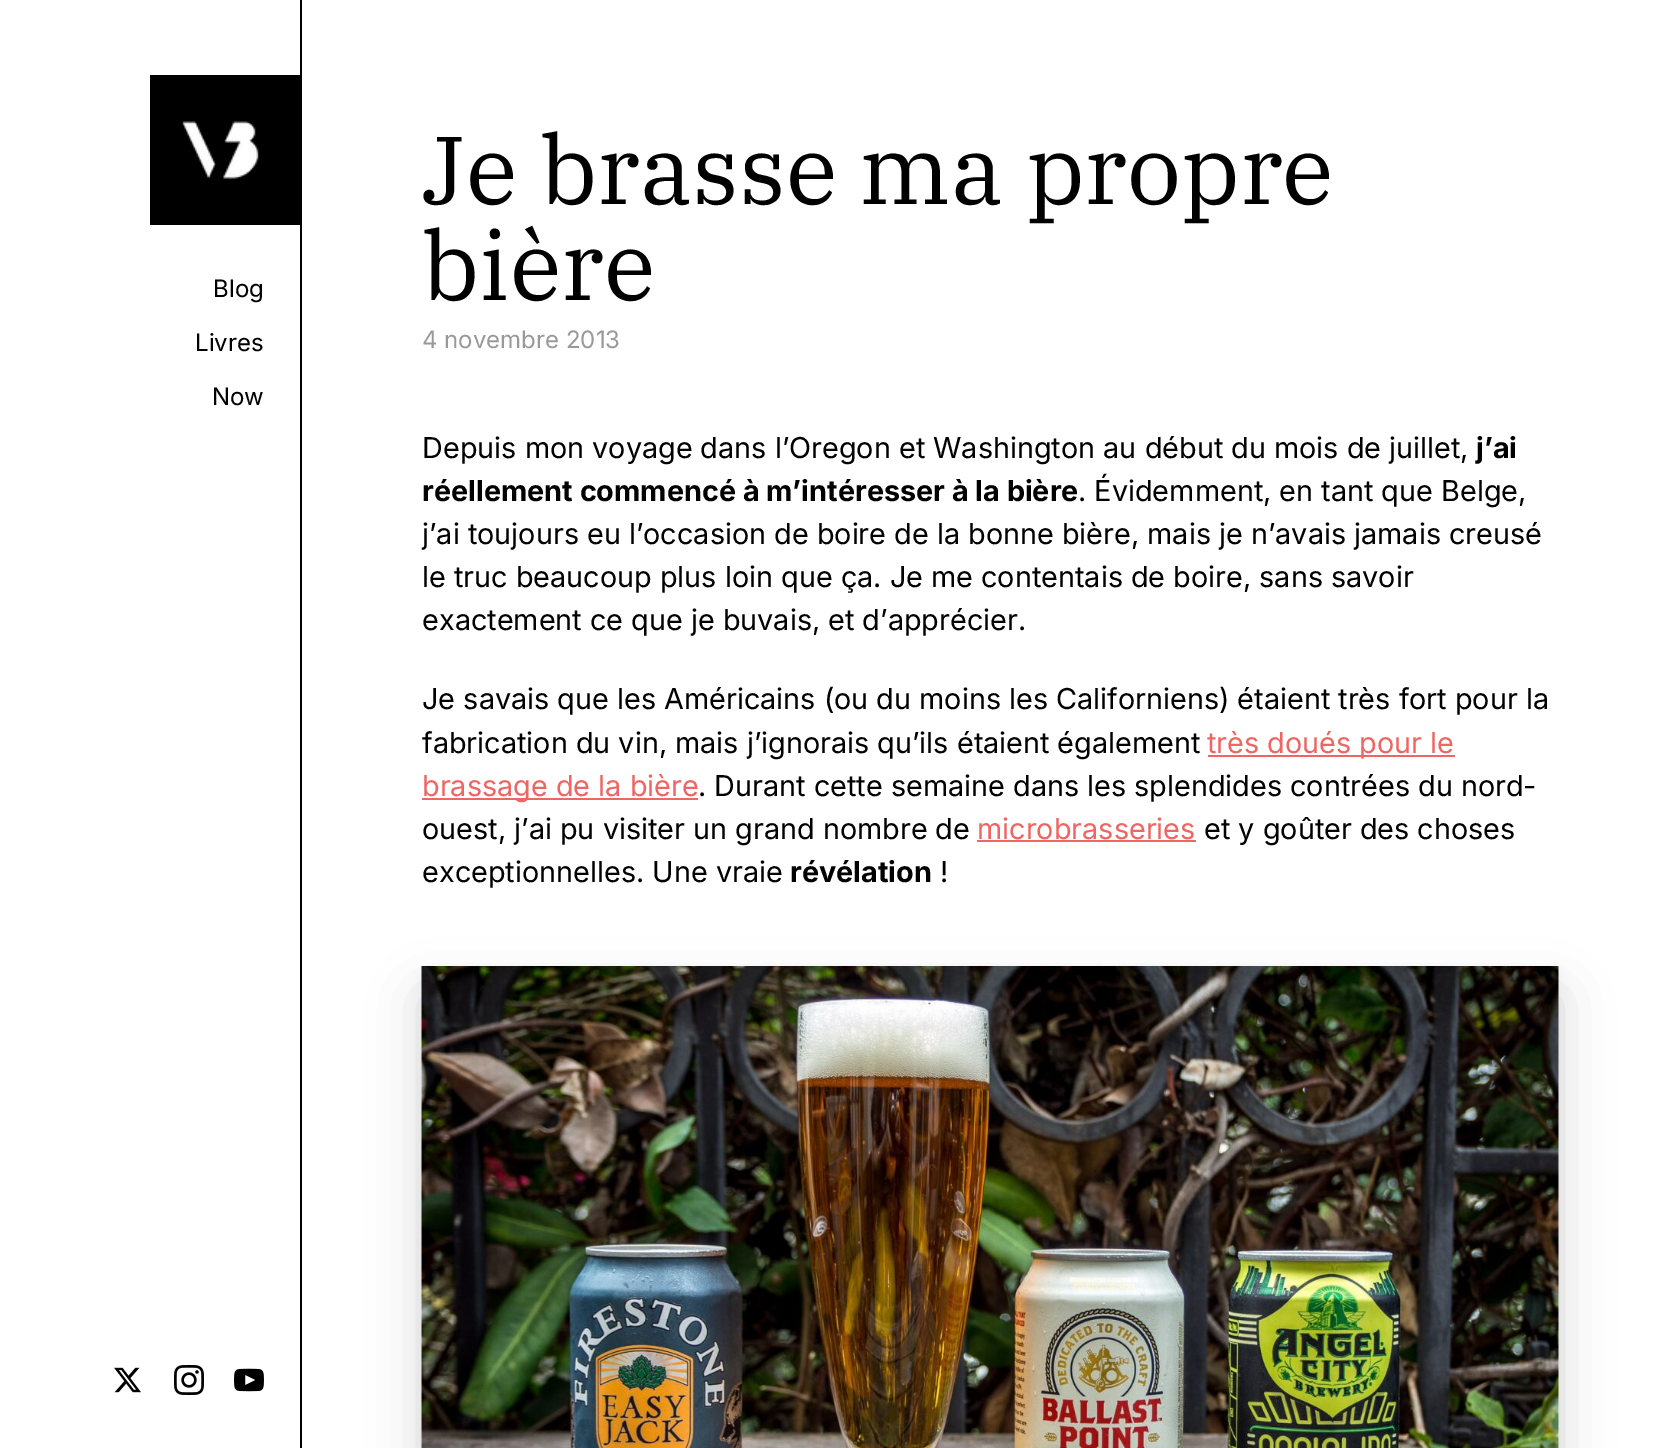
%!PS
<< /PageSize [1678 1448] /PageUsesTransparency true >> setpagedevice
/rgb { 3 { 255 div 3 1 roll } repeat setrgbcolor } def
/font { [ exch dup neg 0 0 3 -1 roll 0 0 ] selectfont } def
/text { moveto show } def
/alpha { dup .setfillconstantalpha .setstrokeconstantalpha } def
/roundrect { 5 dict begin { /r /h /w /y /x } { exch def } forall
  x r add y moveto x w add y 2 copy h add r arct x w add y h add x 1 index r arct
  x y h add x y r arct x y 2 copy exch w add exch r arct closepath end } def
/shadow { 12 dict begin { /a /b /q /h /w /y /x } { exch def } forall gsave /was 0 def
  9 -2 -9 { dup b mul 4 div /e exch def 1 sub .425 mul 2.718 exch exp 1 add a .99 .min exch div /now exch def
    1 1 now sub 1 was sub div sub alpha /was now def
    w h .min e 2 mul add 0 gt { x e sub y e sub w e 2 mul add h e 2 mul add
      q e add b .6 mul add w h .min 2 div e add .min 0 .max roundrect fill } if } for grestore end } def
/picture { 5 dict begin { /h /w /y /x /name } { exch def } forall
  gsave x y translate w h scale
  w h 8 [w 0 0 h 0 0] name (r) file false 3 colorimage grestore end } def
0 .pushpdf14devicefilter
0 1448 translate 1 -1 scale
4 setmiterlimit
255 255 255 rgb
0 0 1678 1448 rectfill
(img_01.rgb) 150 75 150 150 picture
(img_02.rgb) 114 1367 27 26 picture
(img_03.rgb) 174 1365 30 30 picture
(img_04.rgb) 234 1368 30 24 picture
0 0 0 rgb
300 0 2 1448 rectfill
237 102 99 rgb
1208 755 247 2 rectfill
422 798 276 2 rectfill
977 840 219 2 rectfill
0 0 0 rgb
422 974 1137 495 0 7 0.05 shadow
422 996 1137 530 0 26 0.15 shadow
(img_05.rgb) 421 966 1138 482 picture
/Inter-Regular 24 font
(Blog) 213 297 text
(Livres) 195 351 text
(Now) 212 405 text
/IBMPlexSerif-Regular 96 font
(Je brasse ma propre) 422 204 text
(bière) 422 300 text
/Inter-Regular 24 font
153 153 153 rgb
(4 novembre 2013) 422 348 text
/Inter-Regular 28.8 font
0 0 0 rgb
(Depuis mon voyage dans l’Oregon et Washington au début du mois de juillet,) 422 458 text
/Inter-Bold 28.8 font
(j’ai) 1476 458 text
(réellement commencé à m’intéresser à la bière) 422 501 text
/Inter-Regular 28.8 font
(. Évidemment, en tant que Belge,) 1078 501 text
(j’ai toujours eu l’occasion de boire de la bonne bière, mais je n’avais jamais creusé) 422 544 text
(le truc beaucoup plus loin que ça. Je me contentais de boire, sans savoir) 422 587 text
(exactement ce que je buvais, et d’apprécier.) 422 630 text
(Je savais que les Américains \(ou du moins les Californiens\) étaient très fort pour la) 422 709 text
(fabrication du vin, mais j’ignorais qu’ils étaient également) 422 753 text
237 102 99 rgb
(très doués pour le) 1207 753 text
(brassage de la bière) 422 796 text
0 0 0 rgb
(. Durant cette semaine dans les splendides contrées du nord-) 698 796 text
(ouest, j’ai pu visiter un grand nombre de) 422 839 text
237 102 99 rgb
(microbrasseries) 977 839 text
0 0 0 rgb
(et y goûter des choses) 1204 839 text
(exceptionnelles. Une vraie) 422 882 text
/Inter-Bold 28.8 font
(révélation) 790 882 text
/Inter-Regular 28.8 font
(!) 940 882 text
.poppdf14devicefilter showpage
